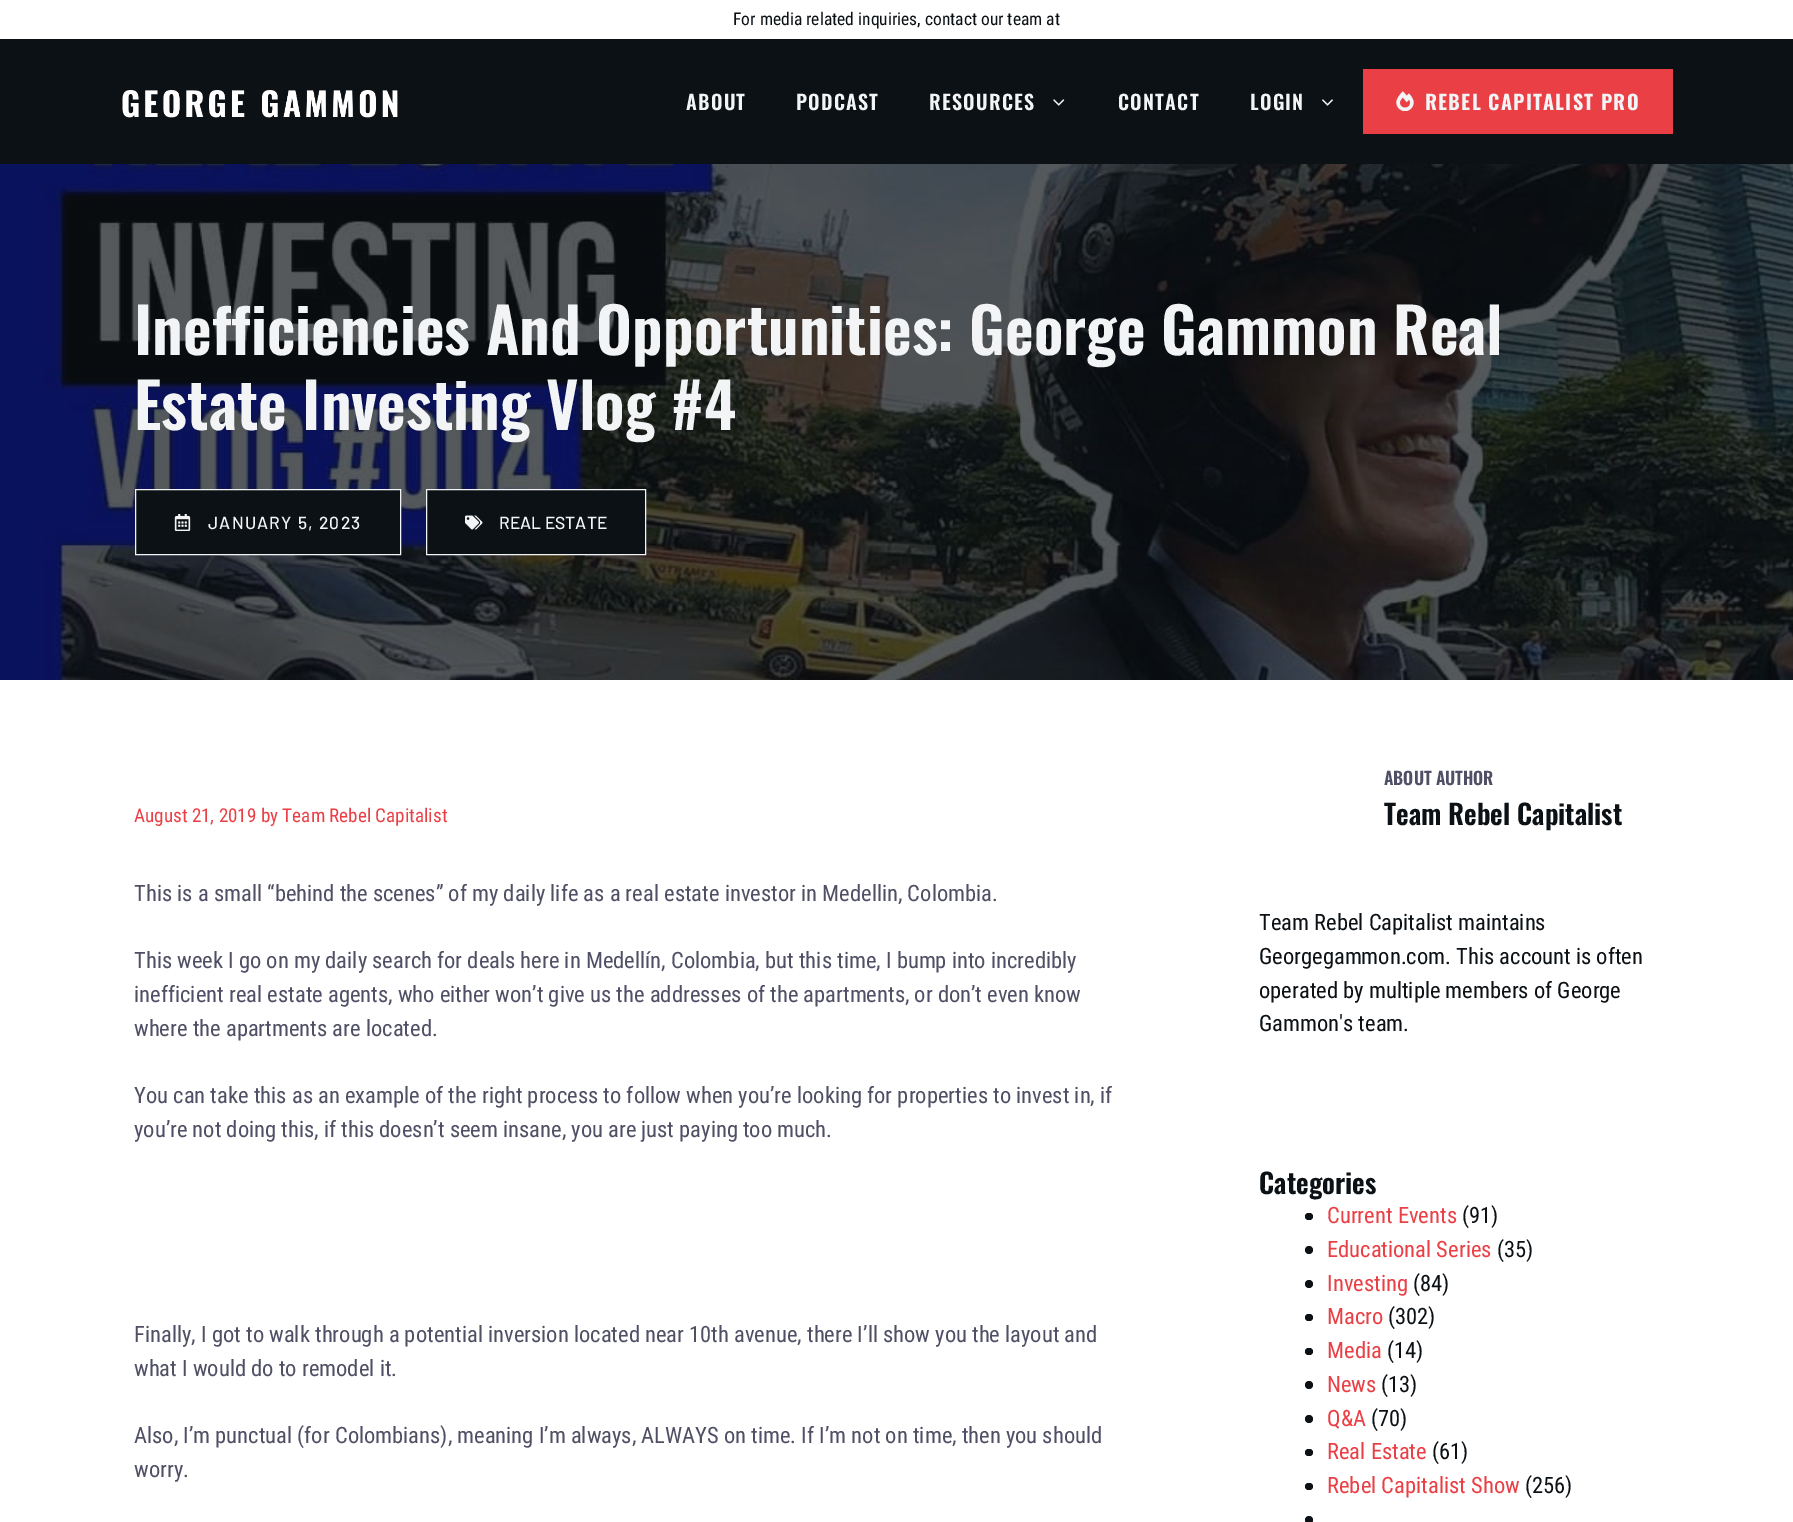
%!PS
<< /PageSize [1793 1522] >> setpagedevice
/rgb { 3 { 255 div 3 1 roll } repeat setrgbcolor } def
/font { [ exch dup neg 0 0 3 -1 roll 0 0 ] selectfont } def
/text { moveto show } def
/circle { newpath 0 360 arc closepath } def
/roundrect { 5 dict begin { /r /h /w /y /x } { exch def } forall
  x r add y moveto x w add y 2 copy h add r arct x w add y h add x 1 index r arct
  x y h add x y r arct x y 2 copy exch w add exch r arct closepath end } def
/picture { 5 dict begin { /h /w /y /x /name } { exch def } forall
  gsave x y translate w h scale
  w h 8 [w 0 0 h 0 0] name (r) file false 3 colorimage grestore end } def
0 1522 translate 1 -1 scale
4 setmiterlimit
255 255 255 rgb
0 0 1793 1522 rectfill
12 17 21 rgb
0 39 1793 641 rectfill
(img_01.rgb) 122 90 276 28 picture
(img_02.rgb) 1053 99 12 7 picture
(img_03.rgb) 1322 99 11 7 picture
234 63 69 rgb
1363 69 310 65 rectfill
(img_04.rgb) 1396 91 18 20 picture
(img_05.rgb) 0 164 1793 516 picture
12 17 21 rgb
135.5 489.5 moveto 265 0 rlineto 0 65 rlineto -265 0 rlineto closepath gsave fill grestore
243 244 245 rgb
stroke
(img_06.rgb) 174 514 17 17 picture
12 17 21 rgb
426.5 489.5 moveto 219 0 rlineto 0 65 rlineto -219 0 rlineto closepath gsave fill grestore
243 244 245 rgb
stroke
(img_07.rgb) 465 515 18 15 picture
12 17 21 rgb
1305 1213 8 7 3.5 roundrect fill
1309 1250 4 circle fill
1309 1284 4 circle fill
1305 1314 8 7 3.5 roundrect fill
1305 1348 8 7 3.5 roundrect fill
1309 1385 4 circle fill
1309 1419 4 circle fill
1305 1449 8 7 3.5 roundrect fill
1305 1483 8 7 3.5 roundrect fill
1309 1520 4 circle fill
/RobotoCondensed-Regular 17.5 font
(For media related inquiries, contact our team at) 733 25 text
/Oswald-SemiBold 20 font
243 244 245 rgb
686 110 moveto 1.25 0 (ABOUT) ashow
796 110 moveto 1.25 0 (PODCAST) ashow
929 110 moveto 1.25 0 (RESOURCES) ashow
1118 110 moveto 1.25 0 (CONTACT) ashow
1250 110 moveto 1.25 0 (LOGIN) ashow
/Oswald-Bold 20 font
1425 110 moveto 1.25 0 (REBEL CAPITALIST PRO) ashow
/Oswald-SemiBold 62.5 font
(Inefficiencies And Opportunities: George Gammon Real) 134 355 text
(Estate Investing Vlog #4) 134 430 text
/Barlow-Medium 17.5 font
208 529 moveto 1.25 0 (JANUARY 5, 2023) ashow
(REAL ESTATE) 499 529 text
/RobotoCondensed-Regular 19.1 font
234 63 69 rgb
(August 21, 2019 by Team Rebel Capitalist) 134 822 text
/RobotoCondensed-Regular 22.5 font
79 79 101 rgb
(This is a small “behind the scenes” of my daily life as a real estate investor in Medellin, Colombia.) 134 901 text
(This week I go on my daily search for deals here in Medellín, Colombia, but this time, I bump into incredibly) 134 968 text
(inefficient real estate agents, who either won’t give us the addresses of the apartments, or don’t even know) 134 1002 text
(where the apartments are located.) 134 1036 text
(You can take this as an example of the right process to follow when you’re looking for properties to invest in, if) 134 1103 text
(you’re not doing this, if this doesn’t seem insane, you are just paying too much.) 134 1137 text
(Finally, I got to walk through a potential inversion located near 10th avenue, there I’ll show you the layout and) 134 1342 text
(what I would do to remodel it.) 134 1376 text
(Also, I’m punctual \(for Colombians\), meaning I’m always, ALWAYS on time. If I’m not on time, then you should) 134 1443 text
(worry.) 134 1477 text
/Oswald-SemiBold 17.5 font
(ABOUT AUTHOR) 1384 785 text
/Oswald-SemiBold 27.5 font
12 17 21 rgb
(Team Rebel Capitalist) 1384 825 text
/RobotoCondensed-Regular 22.5 font
(Team Rebel Capitalist maintains) 1259 930 text
(Georgegammon.com. This account is often) 1259 964 text
(operated by multiple members of George) 1259 998 text
(Gammon's team.) 1259 1031 text
/Oswald-SemiBold 27.5 font
(Categories) 1259 1194 text
/RobotoCondensed-Regular 22.5 font
234 63 69 rgb
(Current Events) 1327 1223 text
12 17 21 rgb
(\(91\)) 1462 1223 text
234 63 69 rgb
(Educational Series) 1327 1257 text
12 17 21 rgb
(\(35\)) 1497 1257 text
234 63 69 rgb
(Investing) 1327 1291 text
12 17 21 rgb
(\(84\)) 1413 1291 text
234 63 69 rgb
(Macro) 1327 1324 text
12 17 21 rgb
(\(302\)) 1388 1324 text
234 63 69 rgb
(Media) 1327 1358 text
12 17 21 rgb
(\(14\)) 1387 1358 text
234 63 69 rgb
(News) 1327 1392 text
12 17 21 rgb
(\(13\)) 1381 1392 text
234 63 69 rgb
(Q&A) 1327 1426 text
12 17 21 rgb
(\(70\)) 1371 1426 text
234 63 69 rgb
(Real Estate) 1327 1459 text
12 17 21 rgb
(\(61\)) 1432 1459 text
234 63 69 rgb
(Rebel Capitalist Show) 1327 1493 text
12 17 21 rgb
(\(256\)) 1525 1493 text
showpage
